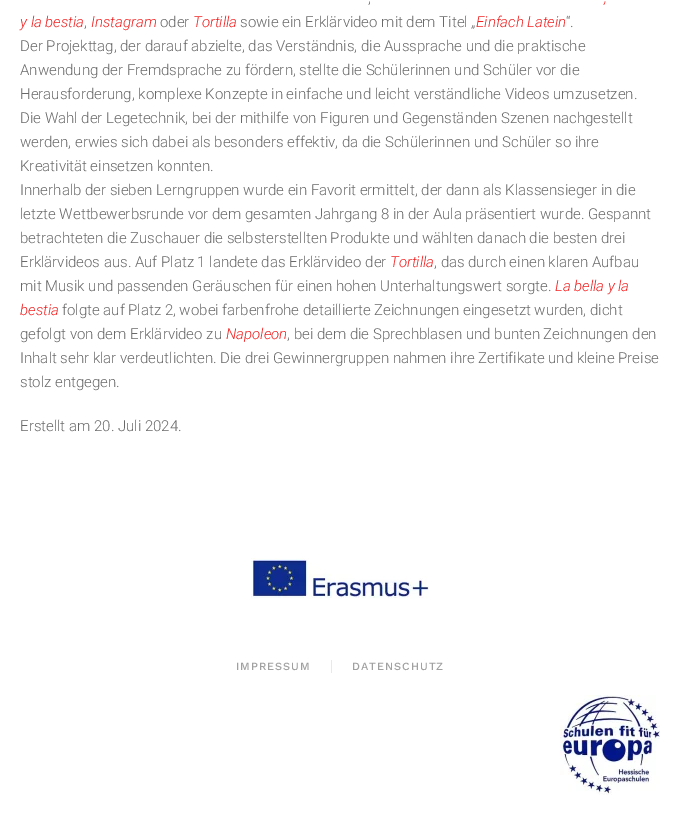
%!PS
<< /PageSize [680 838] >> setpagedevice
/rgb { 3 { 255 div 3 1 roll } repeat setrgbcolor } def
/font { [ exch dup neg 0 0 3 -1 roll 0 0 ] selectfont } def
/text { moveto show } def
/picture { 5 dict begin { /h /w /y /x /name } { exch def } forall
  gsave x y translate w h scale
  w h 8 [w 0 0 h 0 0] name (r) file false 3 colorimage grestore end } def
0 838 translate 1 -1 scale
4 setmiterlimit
255 255 255 rgb
0 0 680 838 rectfill
(img_01.rgb) 251 558 178 41 picture
233 233 233 rgb
331 660 1 13 rectfill
(img_02.rgb) 560 695 100 100 picture
/Roboto-Light 15 font
105 105 105 rgb
(,) 368 3 text
/Roboto-LightItalic 15 font
242 33 33 rgb
(,) 604 3 text
(y la bestia) 20 27 text
/Roboto-Light 15 font
105 105 105 rgb
(,) 84 27 text
/Roboto-LightItalic 15 font
242 33 33 rgb
(Instagram) 91 27 text
/Roboto-Light 15 font
105 105 105 rgb
(oder) 160 27 text
/Roboto-LightItalic 15 font
242 33 33 rgb
(Tortilla) 193 27 text
/Roboto-Light 15 font
105 105 105 rgb
(sowie ein Erklärvideo mit dem Titel „) 240 27 text
/Roboto-LightItalic 15 font
242 33 33 rgb
(Einfach Latein) 476 27 text
/Roboto-Light 15 font
105 105 105 rgb
(“.) 566 27 text
(Der Projekttag, der darauf abzielte, das Verständnis, die Aussprache und die praktische) 20 51 text
(Anwendung der Fremdsprache zu fördern, stellte die Schülerinnen und Schüler vor die) 20 75 text
(Herausforderung, komplexe Konzepte in einfache und leicht verständliche Videos umzusetzen.) 20 99 text
(Die Wahl der Legetechnik, bei der mithilfe von Figuren und Gegenständen Szenen nachgestellt) 20 123 text
(werden, erwies sich dabei als besonders effektiv, da die Schülerinnen und Schüler so ihre) 20 147 text
(Kreativität einsetzen konnten.) 20 171 text
(Innerhalb der sieben Lerngruppen wurde ein Favorit ermittelt, der dann als Klassensieger in die) 20 195 text
(letzte Wettbewerbsrunde vor dem gesamten Jahrgang 8 in der Aula präsentiert wurde. Gespannt) 20 219 text
(betrachteten die Zuschauer die selbsterstellten Produkte und wählten danach die besten drei) 20 243 text
(Erklärvideos aus. Auf Platz 1 landete das Erklärvideo der) 20 267 text
/Roboto-LightItalic 15 font
242 33 33 rgb
(Tortilla) 390 267 text
/Roboto-Light 15 font
105 105 105 rgb
(, das durch einen klaren Aufbau) 434 267 text
(mit Musik und passenden Geräuschen für einen hohen Unterhaltungswert sorgte.) 20 291 text
/Roboto-LightItalic 15 font
242 33 33 rgb
(La bella y la) 555 291 text
(bestia) 20 315 text
/Roboto-Light 15 font
105 105 105 rgb
(folgte auf Platz 2, wobei farbenfrohe detaillierte Zeichnungen eingesetzt wurden, dicht) 62 315 text
(gefolgt von dem Erklärvideo zu) 20 339 text
/Roboto-LightItalic 15 font
242 33 33 rgb
(Napoleon) 226 339 text
/Roboto-Light 15 font
105 105 105 rgb
(, bei dem die Sprechblasen und bunten Zeichnungen den) 287 339 text
(Inhalt sehr klar verdeutlichten. Die drei Gewinnergruppen nahmen ihre Zertifikate und kleine Preise) 20 363 text
(stolz entgegen.) 20 387 text
(Erstellt am 20. Juli 2024.) 20 431 text
/WorkSans-Medium 11 font
160 160 160 rgb
236 670 moveto 1 0 (IMPRESSUM) ashow
352 670 moveto 1 0 (DATENSCHUTZ) ashow
showpage
